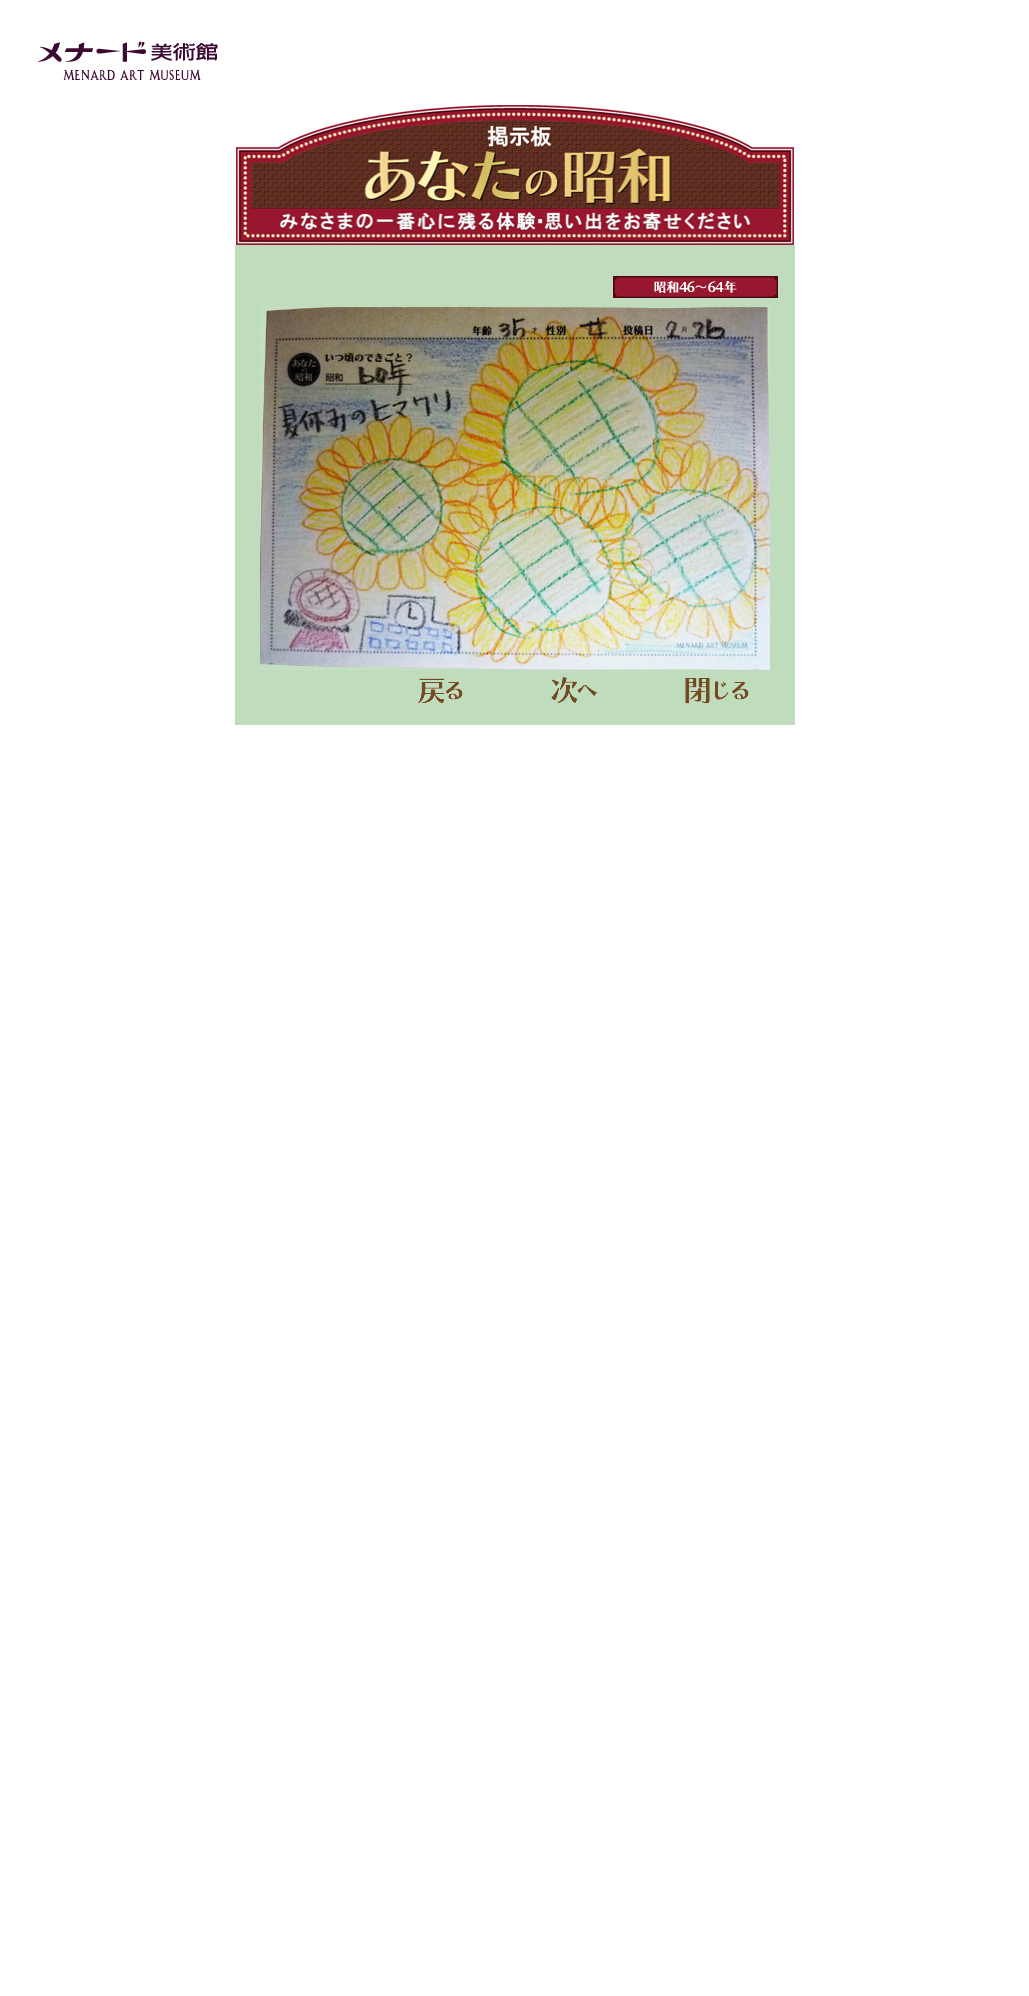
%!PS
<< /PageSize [1029 1996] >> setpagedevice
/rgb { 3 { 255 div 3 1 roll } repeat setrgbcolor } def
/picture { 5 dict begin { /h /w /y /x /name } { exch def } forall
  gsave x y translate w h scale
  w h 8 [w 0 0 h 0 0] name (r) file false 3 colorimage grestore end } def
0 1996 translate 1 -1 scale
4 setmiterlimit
255 255 255 rgb
0 0 1029 1996 rectfill
(img_01.rgb) 37 38 181 42 picture
(img_02.rgb) 236 105 558 140 picture
191 221 189 rgb
235 245 560 480 rectfill
(img_03.rgb) 613 276 165 22 picture
(img_04.rgb) 260 307 510 363 picture
(img_05.rgb) 418 678 45 26 picture
(img_06.rgb) 551 676 46 28 picture
(img_07.rgb) 684 677 65 27 picture
showpage
